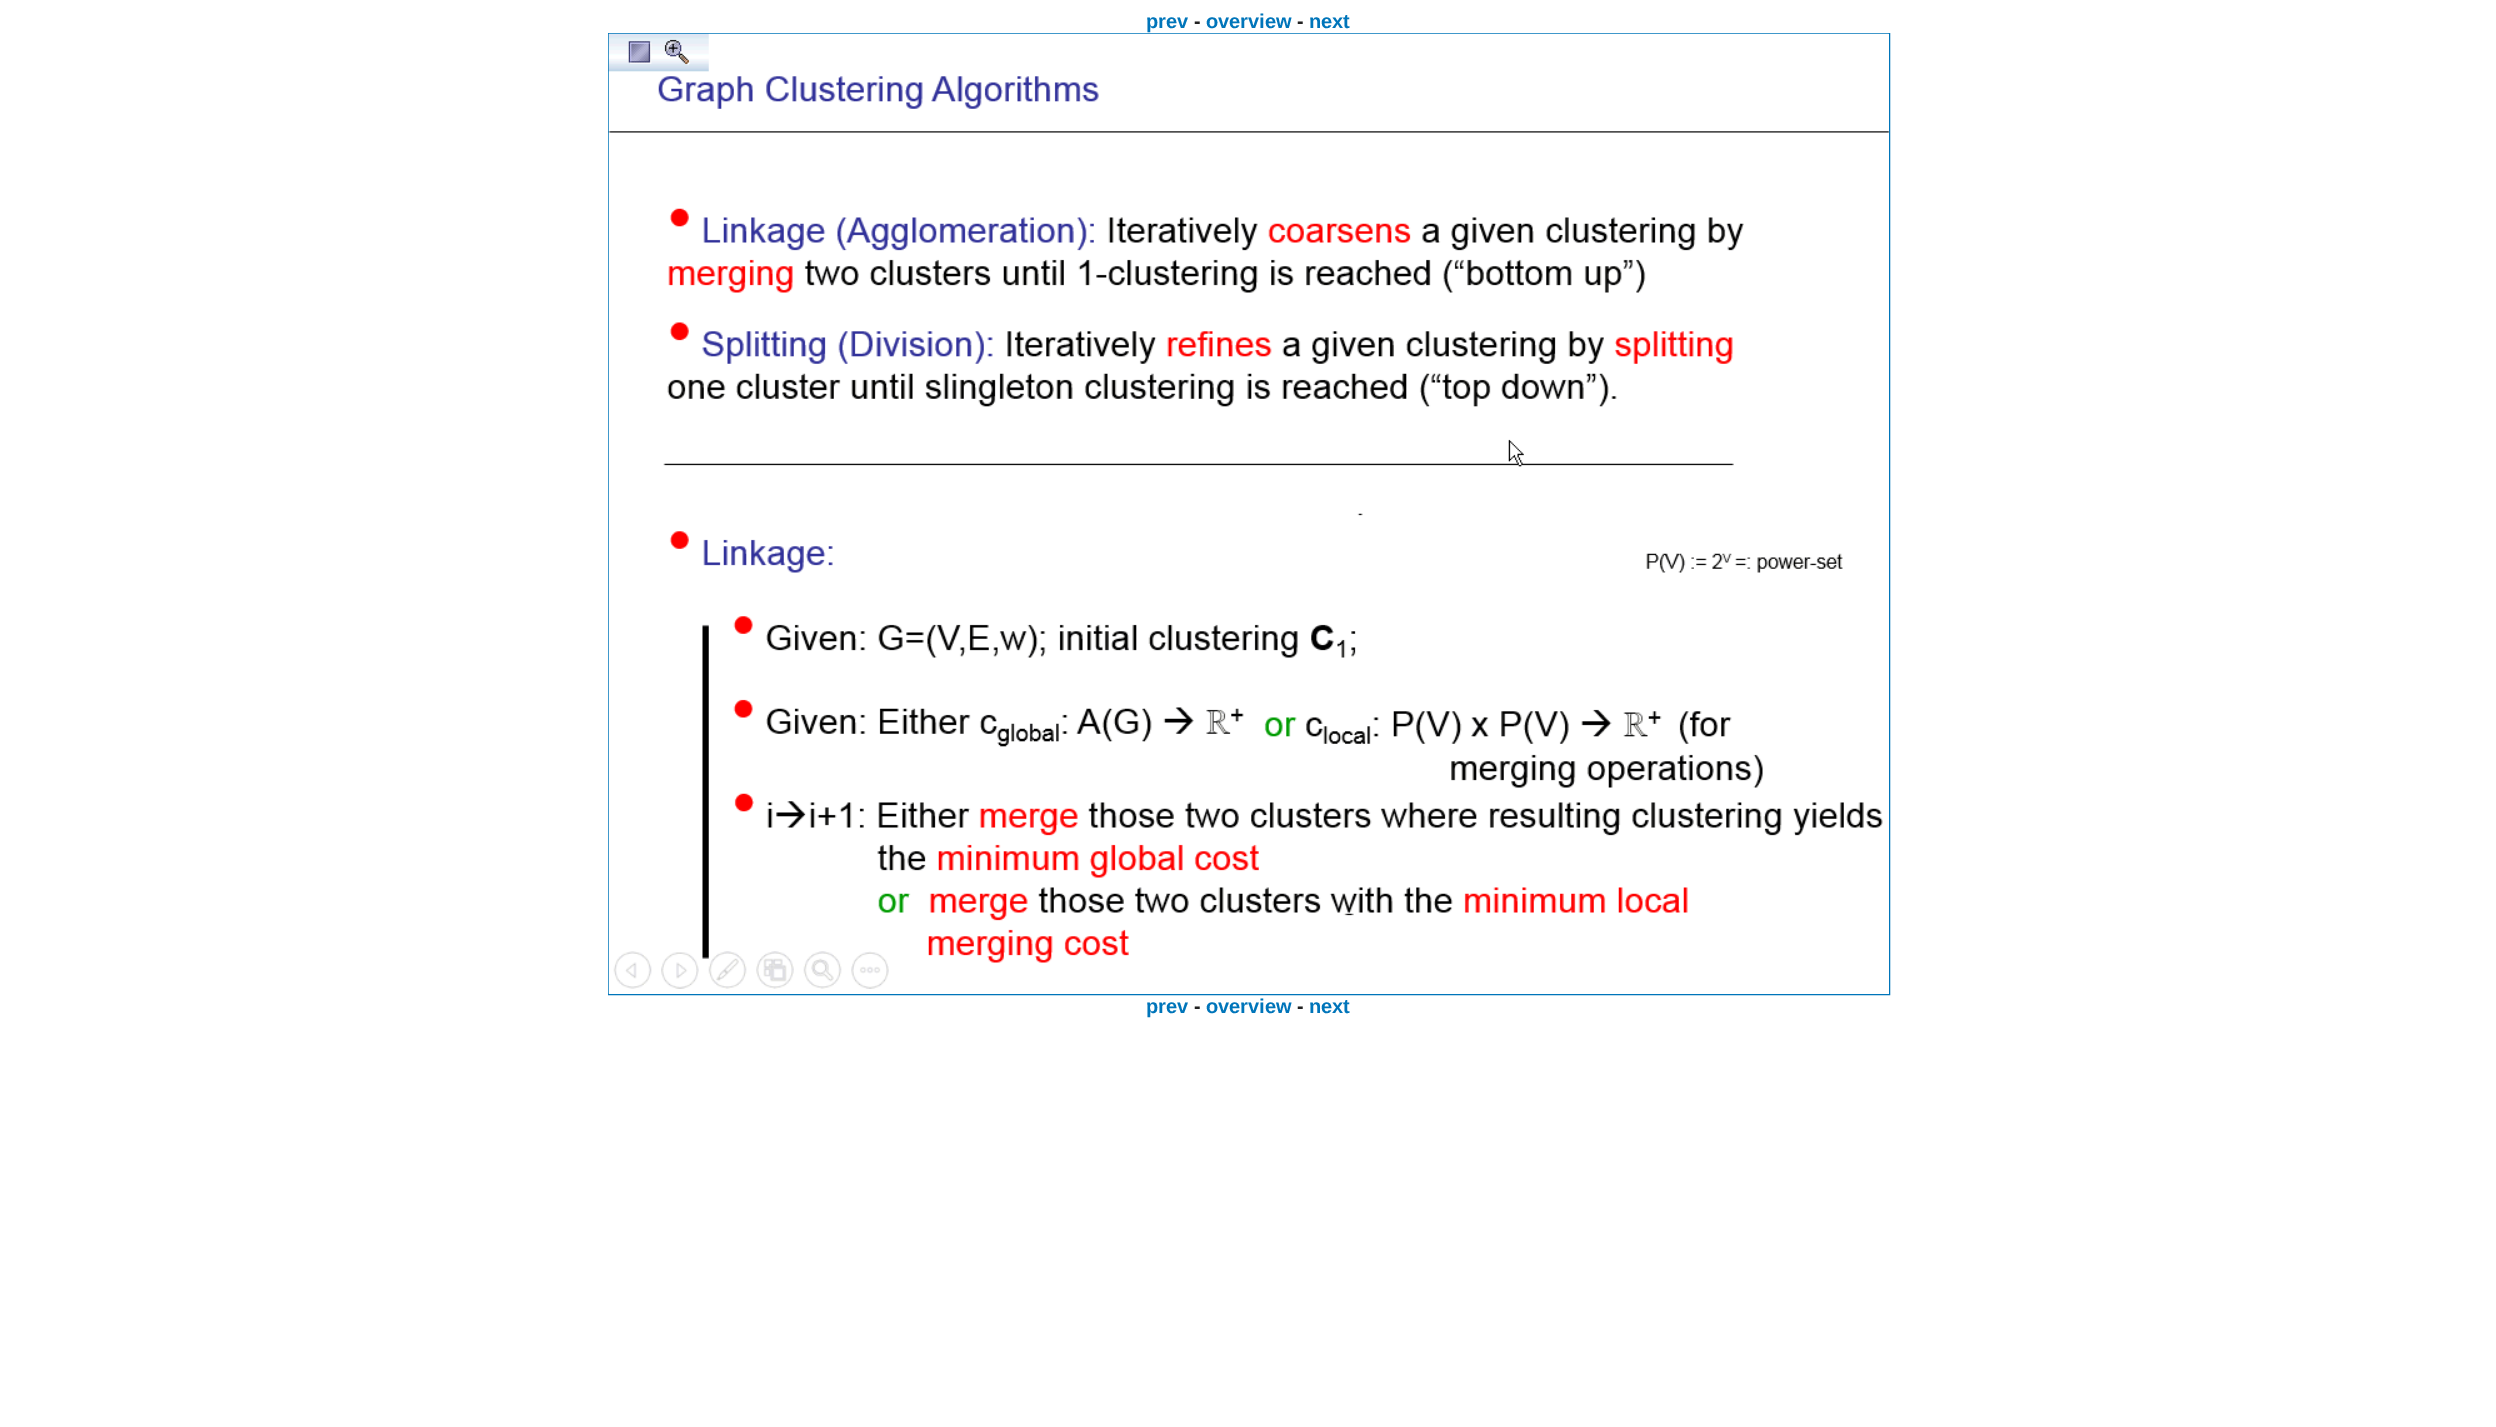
%!PS
<< /PageSize [2496 1427] >> setpagedevice
/rgb { 3 { 255 div 3 1 roll } repeat setrgbcolor } def
/font { [ exch dup neg 0 0 3 -1 roll 0 0 ] selectfont } def
/text { moveto show } def
/picture { 5 dict begin { /h /w /y /x /name } { exch def } forall
  gsave x y translate w h scale
  w h 8 [w 0 0 h 0 0] name (r) file false 3 colorimage grestore end } def
0 1427 translate 1 -1 scale
4 setmiterlimit
255 255 255 rgb
0 0 2496 1427 rectfill
0 117 186 rgb
608.5 33.5 1281 961 rectstroke
(img_01.rgb) 608 33 1281 961 picture
/LiberationSans-Bold 20 font
(prev) 1146 28 text
34 34 34 rgb
(-) 1194 28 text
0 117 186 rgb
(overview) 1206 28 text
34 34 34 rgb
(-) 1297 28 text
0 117 186 rgb
(next) 1309 28 text
(prev) 1146 1013 text
34 34 34 rgb
(-) 1194 1013 text
0 117 186 rgb
(overview) 1206 1013 text
34 34 34 rgb
(-) 1297 1013 text
0 117 186 rgb
(next) 1309 1013 text
showpage
